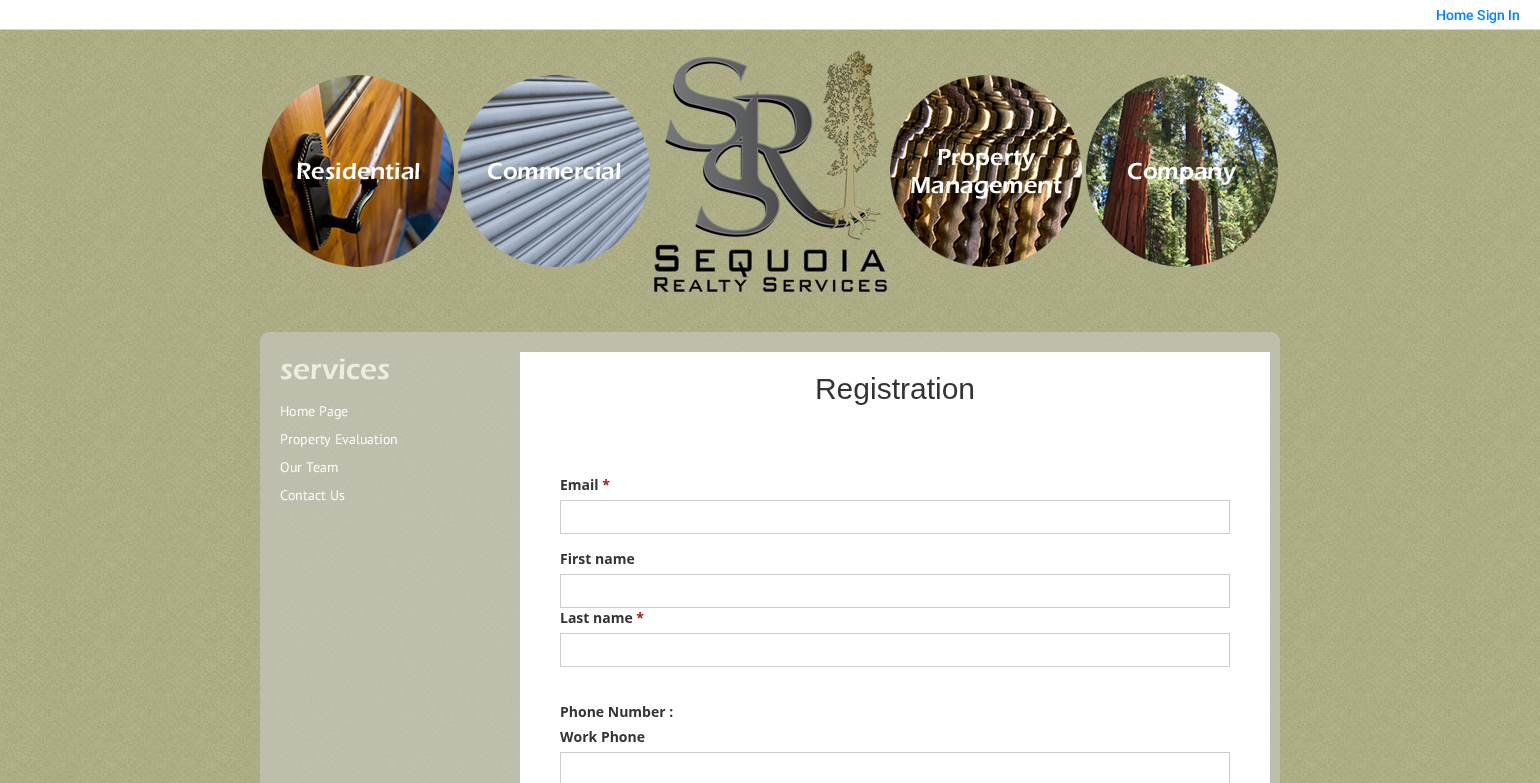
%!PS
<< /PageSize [1540 783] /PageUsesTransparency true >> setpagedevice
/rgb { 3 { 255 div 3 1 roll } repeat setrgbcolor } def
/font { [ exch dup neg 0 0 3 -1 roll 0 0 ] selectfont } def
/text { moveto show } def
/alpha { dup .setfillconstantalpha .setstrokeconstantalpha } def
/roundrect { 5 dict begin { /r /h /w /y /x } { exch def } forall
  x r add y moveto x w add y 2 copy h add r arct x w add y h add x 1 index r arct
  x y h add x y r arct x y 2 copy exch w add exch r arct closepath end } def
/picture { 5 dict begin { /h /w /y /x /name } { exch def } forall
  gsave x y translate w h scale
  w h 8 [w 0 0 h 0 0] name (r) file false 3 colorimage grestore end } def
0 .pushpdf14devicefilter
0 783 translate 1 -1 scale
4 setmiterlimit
255 255 255 rgb
0 0 1540 783 rectfill
(img_01.rgb) 0 30 1540 753 picture
214 214 214 rgb
0 29 1540 1 rectfill
(img_02.rgb) 262 75 192 192 picture
(img_03.rgb) 458 75 192 192 picture
(img_04.rgb) 654 50 233 242 picture
(img_05.rgb) 890 75 192 192 picture
(img_06.rgb) 1086 75 192 192 picture
0.65 alpha
199 199 193 rgb
260 332 1020 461 10 roundrect fill
1 alpha
(img_07.rgb) 520 352 750 431 picture
/Roboto-Medium 14 font
0 132 255 rgb
(Home Sign In) 1436 20 text
/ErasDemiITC-Regular 24 font
255 255 255 rgb
(Residential) 296 179 text
(Commercial) 487 179 text
(Property) 937 165 text
(Management) 910 193 text
(Company) 1127 179 text
/ErasDemiITC-Regular 30 font
240 236 221 rgb
(services) 280 379 text
/PTSans-Regular 14 font
255 255 255 rgb
(Home Page) 280 416 text
(Property Evaluation) 280 444 text
(Our Team) 280 472 text
(Contact Us) 280 500 text
.poppdf14devicefilter showpage
